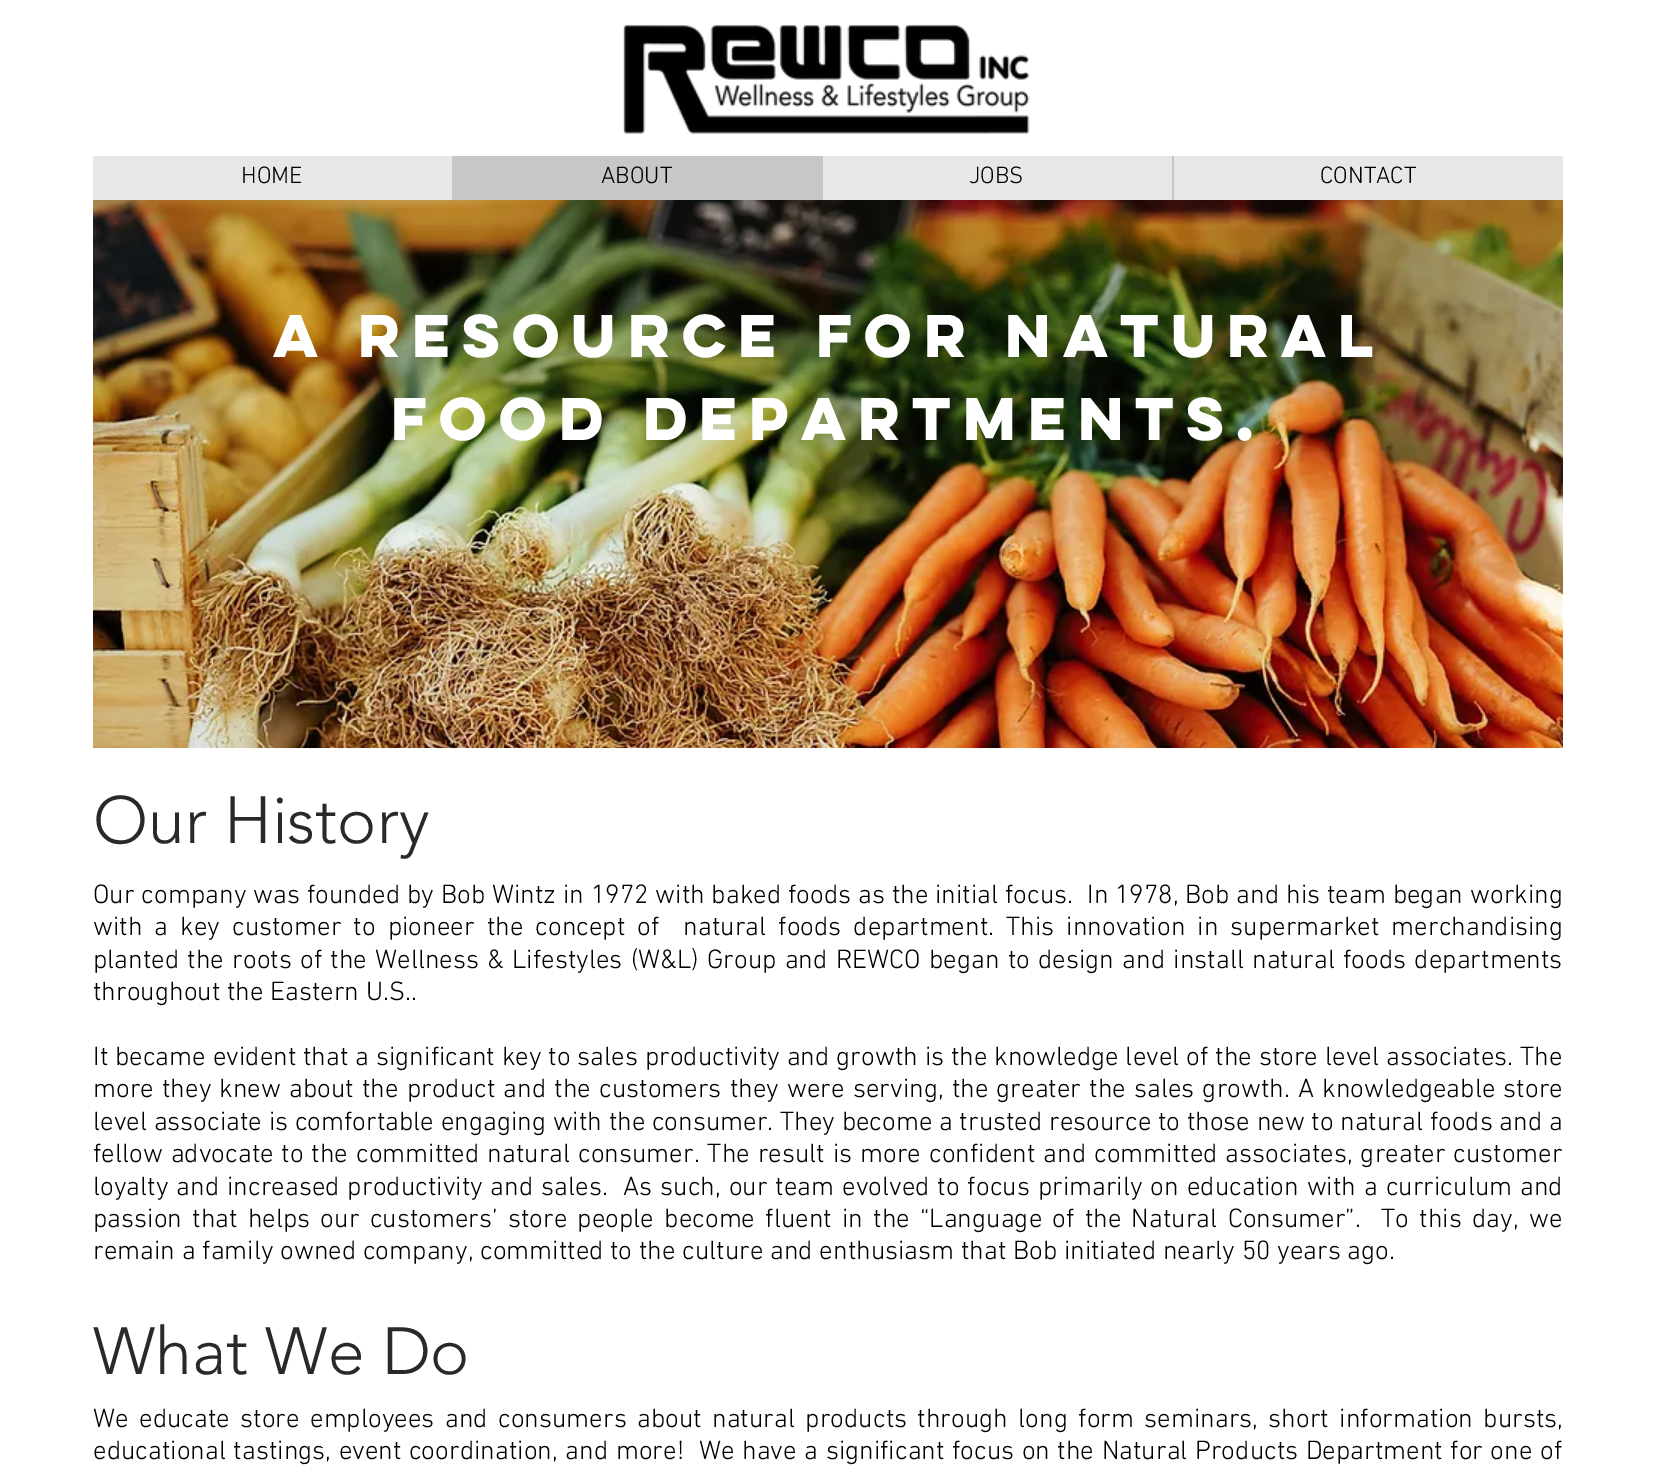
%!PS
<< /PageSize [1656 1472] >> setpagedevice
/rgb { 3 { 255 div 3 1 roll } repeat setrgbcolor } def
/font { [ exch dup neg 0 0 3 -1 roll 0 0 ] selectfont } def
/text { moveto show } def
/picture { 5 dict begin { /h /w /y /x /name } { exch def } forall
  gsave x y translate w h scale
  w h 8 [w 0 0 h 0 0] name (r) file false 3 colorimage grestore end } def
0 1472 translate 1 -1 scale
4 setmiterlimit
255 255 255 rgb
0 0 1656 1472 rectfill
(img_01.rgb) 623 24 407 110 picture
232 230 230 rgb
93 156 1470 44 rectfill
199 199 199 rgb
452 156 371 44 rectfill
1172 156 2 44 rectfill
(img_02.rgb) 93 200 1470 549 picture
/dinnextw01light-Light 24 font
0 0 0 rgb
(HOME) 241 183 text
(ABOUT) 601 183 text
(JOBS) 969 183 text
(CONTACT) 1320 183 text
/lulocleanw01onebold-Bold 54 font
255 255 255 rgb
(A resource for natural) 273 357 text
(Food Departments.) 391 440 text
/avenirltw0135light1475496-Light 66 font
41 41 41 rgb
(Our History) 93 843 text
/dinnextw01light-Light 27 font
0 0 0 rgb
93 903 moveto 0.25 0 32 (Our company was founded by Bob Wintz in 1972 with baked foods as the initial focus.  In 1978, Bob and his team began working) widthshow
93 935 moveto 5.4 0 32 (with a key customer to pioneer the concept of  natural foods department. This innovation in supermarket merchandising) widthshow
93 968 moveto 1.6 0 32 (planted the roots of the Wellness & Lifestyles \(W&L\) Group and REWCO began to design and install natural foods departments) widthshow
(throughout the Eastern U.S..) 93 1000 text
93 1065 moveto 0.25 0 32 (It became evident that a significant key to sales productivity and growth is the knowledge level of the store level associates. The) widthshow
93 1097 moveto 1.5 0 32 (more they knew about the product and the customers they were serving, the greater the sales growth. A knowledgeable store) widthshow
(level associate is comfortable engaging with the consumer. They become a trusted resource to those new to natural foods and a) 93 1130 text
93 1162 moveto 1.25 0 32 (fellow advocate to the committed natural consumer. The result is more confident and committed associates, greater customer) widthshow
93 1195 moveto 1.25 0 32 (loyalty and increased productivity and sales.  As such, our team evolved to focus primarily on education with a curriculum and) widthshow
93 1227 moveto 3.6 0 32 (passion that helps our customers’ store people become fluent in the “Language of the Natural Consumer”.  To this day, we) widthshow
(remain a family owned company, committed to the culture and enthusiasm that Bob initiated nearly 50 years ago.) 93 1259 text
/avenirltw0135light1475496-Light 66 font
41 41 41 rgb
(What We Do) 93 1374 text
/dinnextw01light-Light 27 font
0 0 0 rgb
93 1427 moveto 3.75 0 32 (We educate store employees and consumers about natural products through long form seminars, short information bursts,) widthshow
93 1459 moveto 0.9 0 32 (educational tastings, event coordination, and more!  We have a significant focus on the Natural Products Department for one of) widthshow
showpage
